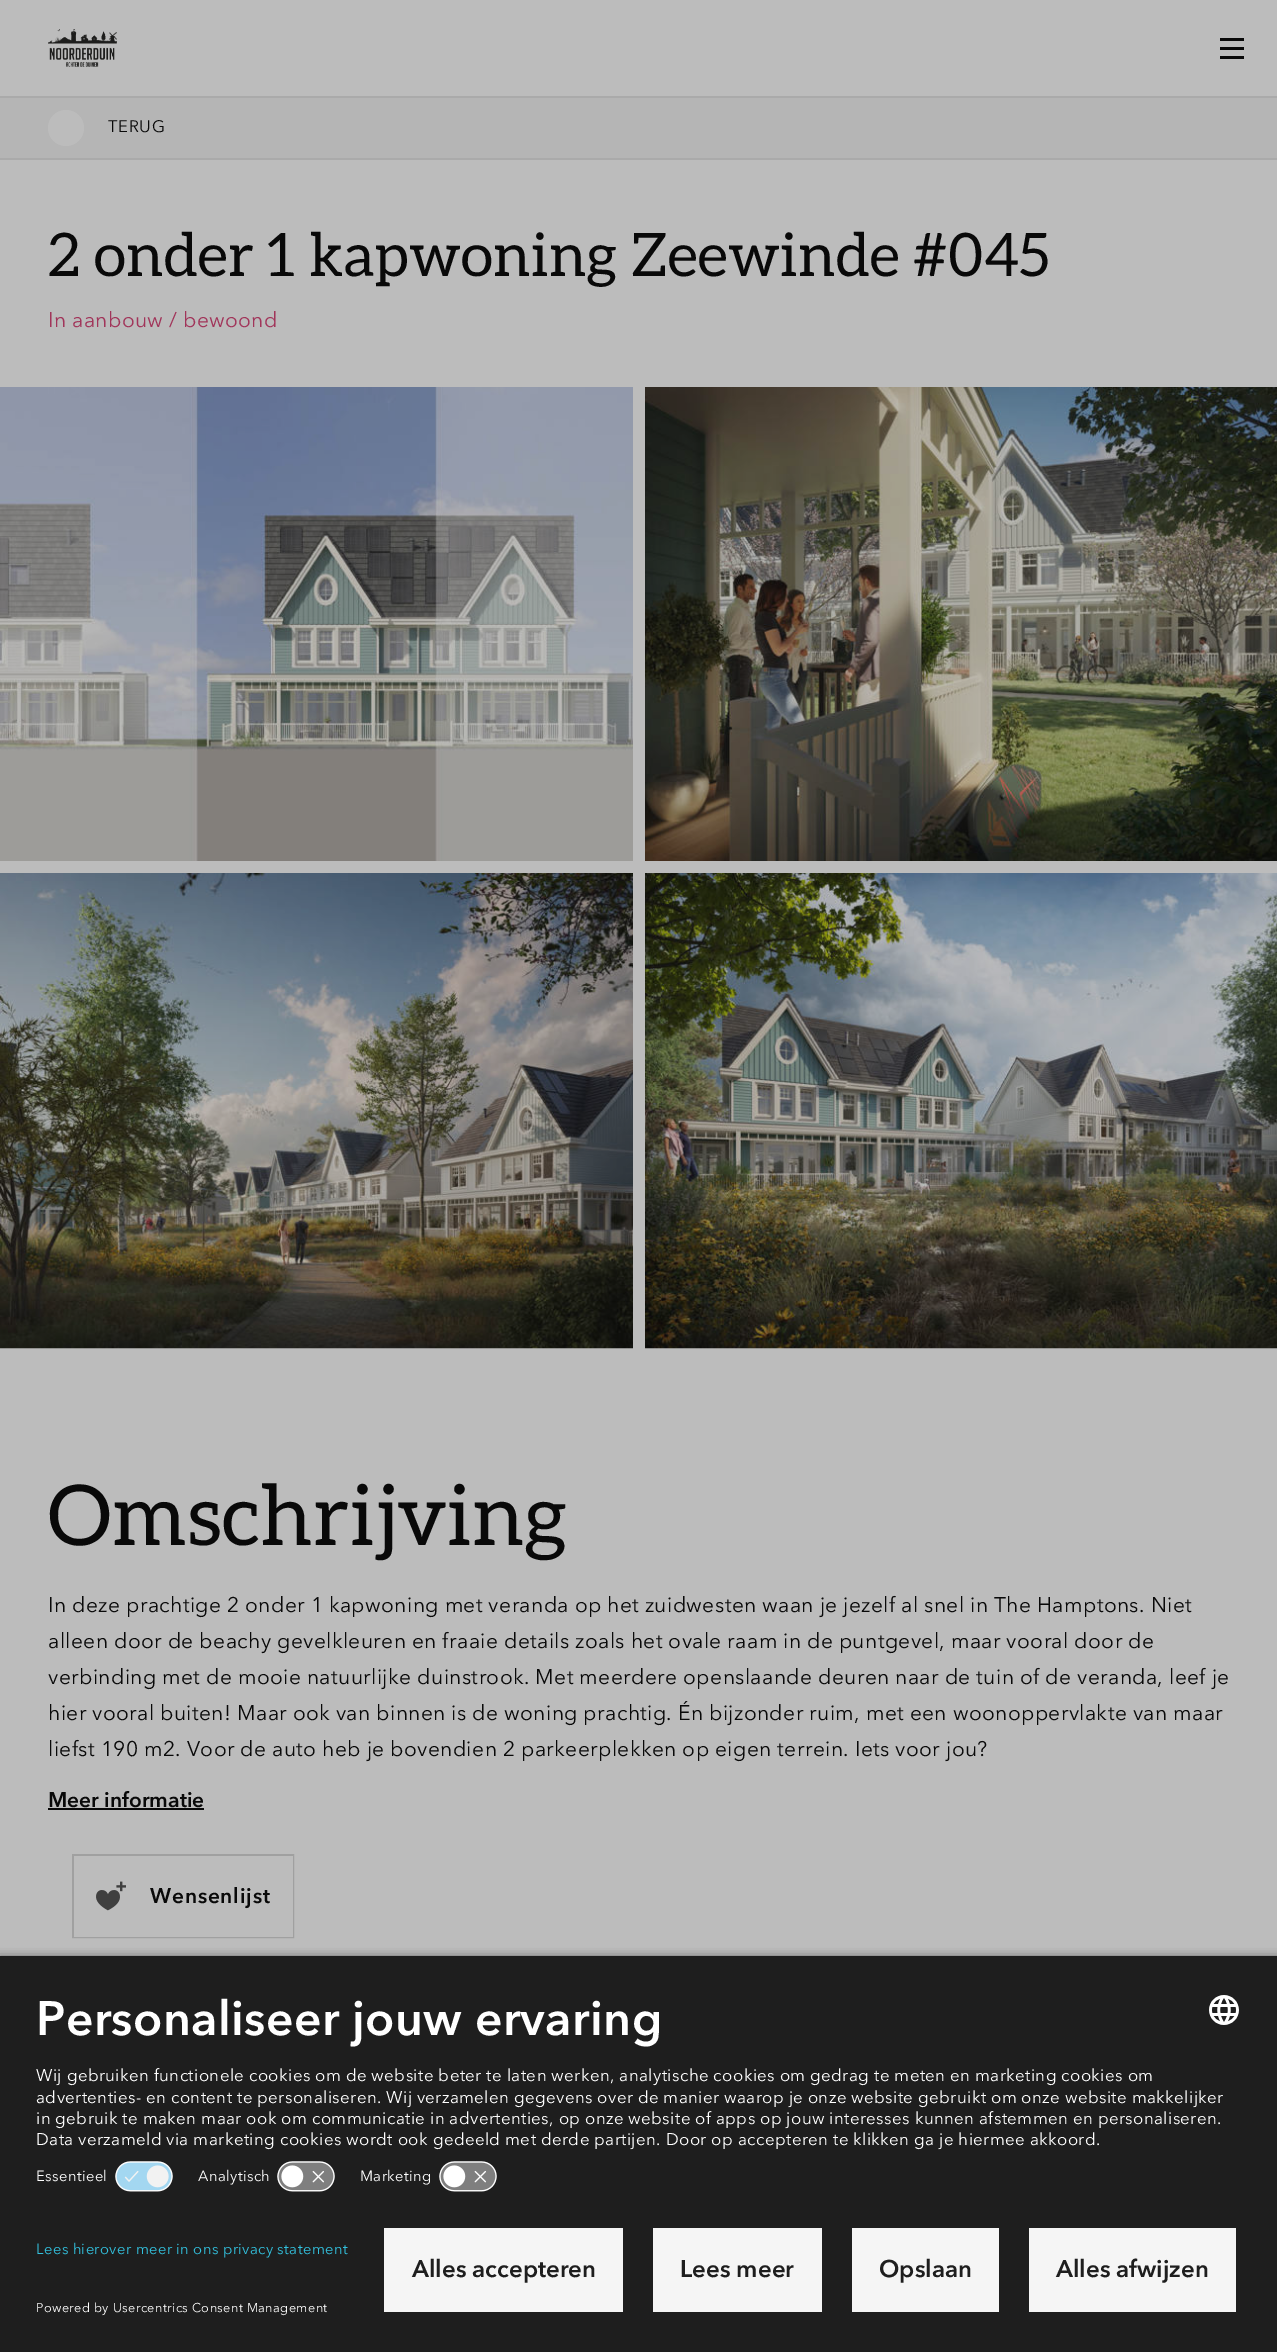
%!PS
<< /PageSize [1277 2352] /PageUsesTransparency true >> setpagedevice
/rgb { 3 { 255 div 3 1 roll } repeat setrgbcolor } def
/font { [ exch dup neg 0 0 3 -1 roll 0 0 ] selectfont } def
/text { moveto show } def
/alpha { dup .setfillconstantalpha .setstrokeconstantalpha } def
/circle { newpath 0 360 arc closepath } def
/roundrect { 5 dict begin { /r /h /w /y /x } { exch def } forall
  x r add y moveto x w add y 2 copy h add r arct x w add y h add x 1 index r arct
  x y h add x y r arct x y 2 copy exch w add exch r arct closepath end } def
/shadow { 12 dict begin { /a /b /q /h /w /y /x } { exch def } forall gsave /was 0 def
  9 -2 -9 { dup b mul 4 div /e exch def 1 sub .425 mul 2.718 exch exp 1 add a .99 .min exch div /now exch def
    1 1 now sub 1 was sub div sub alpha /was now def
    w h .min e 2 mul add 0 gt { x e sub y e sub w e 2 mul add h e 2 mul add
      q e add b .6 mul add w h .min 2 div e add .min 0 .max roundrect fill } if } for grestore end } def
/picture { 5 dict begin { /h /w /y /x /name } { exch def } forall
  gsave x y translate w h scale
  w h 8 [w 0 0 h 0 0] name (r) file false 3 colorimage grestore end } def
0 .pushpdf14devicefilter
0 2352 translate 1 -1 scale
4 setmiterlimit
188 188 188 rgb
0 0 1277 2352 rectfill
170 170 170 rgb
0 96 1277 2 rectfill
(img_01.rgb) 48 29 69 38 picture
9 9 9 rgb
1220 47 24 3 rectfill
1220 38 24 3 rectfill
1220 56 24 3 rectfill
181 181 181 rgb
0 98 1277 60 rectfill
170 170 170 rgb
0 158 1277 2 rectfill
188 188 188 rgb
66 128 18 circle fill
(img_02.rgb) 0 387 633 474 picture
(img_03.rgb) 645 387 632 474 picture
(img_04.rgb) 0 873 633 476 picture
(img_05.rgb) 645 873 632 476 picture
9 9 9 rgb
48 1808 156 2 rectfill
160 160 160 rgb
2 setlinewidth
73 1855 220 82 rectstroke
188 188 188 rgb
74 1856 219 81 rectfill
(img_06.rgb) 96 1881 30 30 picture
0 0 0 rgb
0 1959 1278 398 0 5 0.8 shadow
30 30 30 rgb
0 1956 1277 396 rectfill
(img_07.rgb) 1209 1995 30 30 picture
(img_08.rgb) 115 2161 58 31 picture
(img_09.rgb) 277 2161 58 31 picture
(img_09.rgb) 439 2161 58 31 picture
245 245 245 rgb
384 2228 239 84 rectfill
653 2228 169 84 rectfill
852 2228 147 84 rectfill
1029 2228 207 84 rectfill
/AvenirNext-Regular 16.5 font
9 9 9 rgb
108 132 moveto 0.75 0 (TERUG) ashow
/Aleo-Regular 60 font
48 276 moveto 0.38 0 (2 onder 1 kapwoning Zeewinde #045) ashow
/AvenirNext-Regular 21 font
161 53 90 rgb
48 327 moveto 0.38 0 (In aanbouw / bewoond) ashow
/Aleo-Regular 84 font
9 9 9 rgb
48 1545 moveto 0.38 0 (Omschrijving) ashow
/AvenirNext-Regular 21 font
48 1612 moveto 0.38 0 (In deze prachtige 2 onder 1 kapwoning met veranda op het zuidwesten waan je jezelf al snel in The Hamptons. Niet) ashow
48 1648 moveto 0.38 0 (alleen door de beachy gevelkleuren en fraaie details zoals het ovale raam in de puntgevel, maar vooral door de) ashow
48 1684 moveto 0.38 0 (verbinding met de mooie natuurlijke duinstrook. Met meerdere openslaande deuren naar de tuin of de veranda, leef je) ashow
48 1720 moveto 0.38 0 (hier vooral buiten! Maar ook van binnen is de woning prachtig. Én bijzonder ruim, met een woonoppervlakte van maar) ashow
48 1756 moveto 0.38 0 (liefst 190 m2. Voor de auto heb je bovendien 2 parkeerplekken op eigen terrein. Iets voor jou?) ashow
/AvenirNext-Bold 21 font
(Meer informatie) 48 1807 text
150 1903 moveto 0.75 0 (Wensenlijst) ashow
/AvenirNext-Bold 48 font
255 255 255 rgb
36 2035 moveto 0.38 0 (Personaliseer jouw ervaring) ashow
/AvenirNext-Regular 16.88 font
36 2081 moveto 0.38 0 (Wij gebruiken functionele cookies om de website beter te laten werken, analytische cookies om gedrag te meten en marketing cookies om) ashow
36 2103 moveto 0.38 0 (advertenties- en content te personaliseren. Wij verzamelen gegevens over de manier waarop je onze website gebruikt om onze website makkelijker) ashow
36 2124 moveto 0.38 0 (in gebruik te maken maar ook om communicatie in advertenties, op onze website of apps op jouw interesses kunnen afstemmen en personaliseren.) ashow
36 2145 moveto 0.38 0 (Data verzameld via marketing cookies wordt ook gedeeld met derde partijen. Door op accepteren te klikken ga je hiermee akkoord.) ashow
/AvenirNext-Regular 14.75 font
36 2181 moveto 0.38 0 (Essentieel) ashow
198 2181 moveto 0.38 0 (Analytisch) ashow
360 2181 moveto 0.38 0 (Marketing) ashow
50 193 222 rgb
36 2254 moveto 0.38 0 (Lees hierover meer in ons privacy statement) ashow
/AvenirNext-Regular 12.7 font
255 255 255 rgb
36 2312 moveto 0.38 0 (Powered by Usercentrics Consent Management) ashow
/AvenirNext-Bold 24 font
30 30 30 rgb
(Alles accepteren) 412 2277 text
(Lees meer) 680 2277 text
(Opslaan) 879 2277 text
(Alles afwijzen) 1056 2277 text
.poppdf14devicefilter showpage
